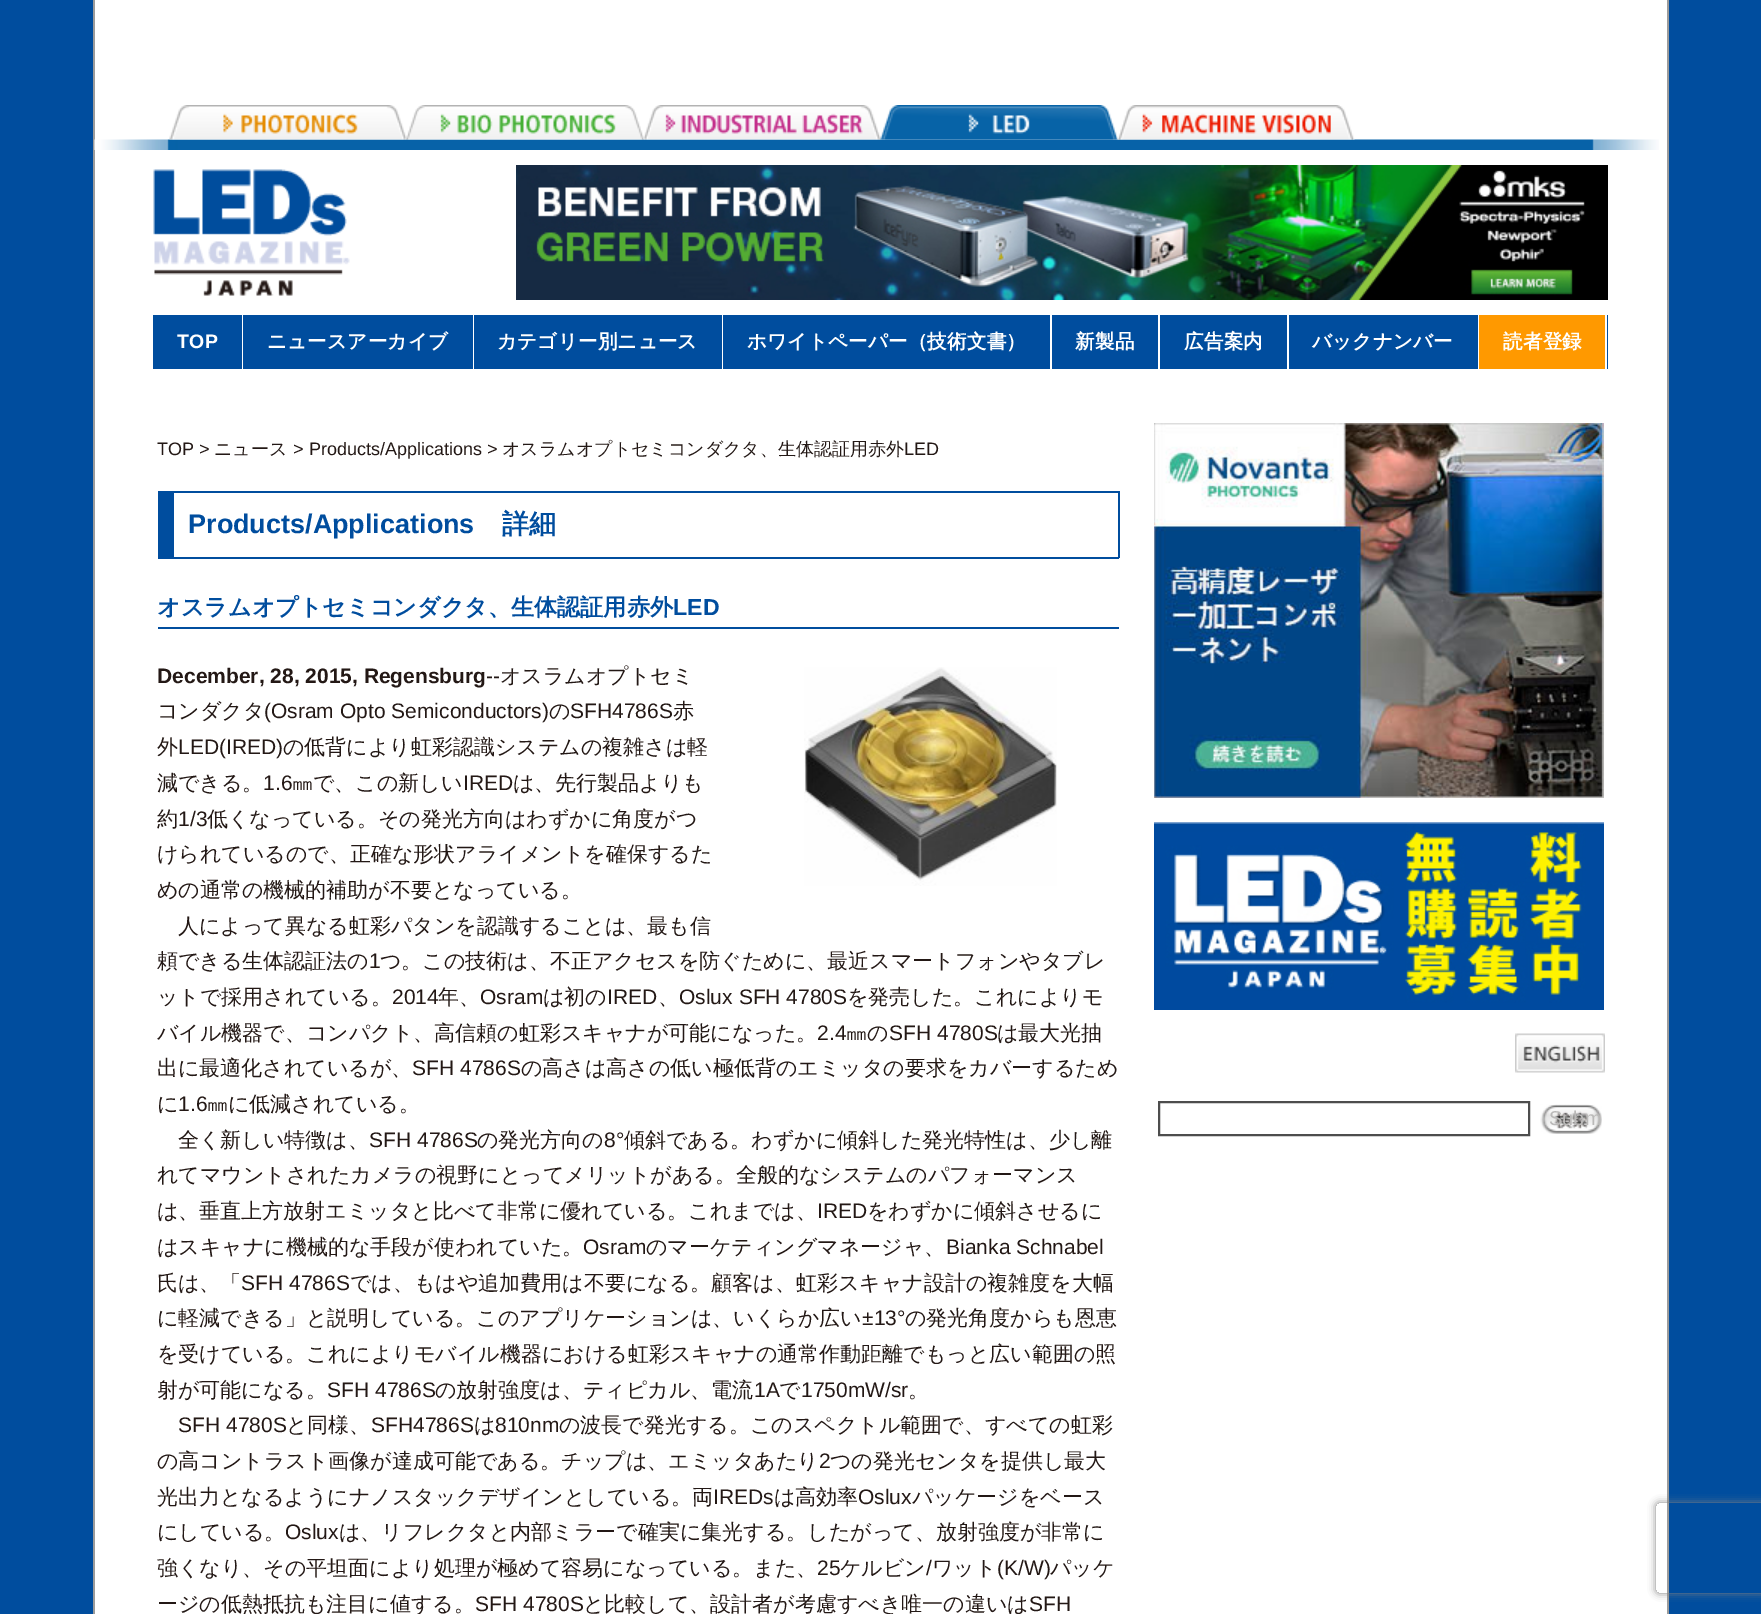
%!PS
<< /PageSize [1761 1614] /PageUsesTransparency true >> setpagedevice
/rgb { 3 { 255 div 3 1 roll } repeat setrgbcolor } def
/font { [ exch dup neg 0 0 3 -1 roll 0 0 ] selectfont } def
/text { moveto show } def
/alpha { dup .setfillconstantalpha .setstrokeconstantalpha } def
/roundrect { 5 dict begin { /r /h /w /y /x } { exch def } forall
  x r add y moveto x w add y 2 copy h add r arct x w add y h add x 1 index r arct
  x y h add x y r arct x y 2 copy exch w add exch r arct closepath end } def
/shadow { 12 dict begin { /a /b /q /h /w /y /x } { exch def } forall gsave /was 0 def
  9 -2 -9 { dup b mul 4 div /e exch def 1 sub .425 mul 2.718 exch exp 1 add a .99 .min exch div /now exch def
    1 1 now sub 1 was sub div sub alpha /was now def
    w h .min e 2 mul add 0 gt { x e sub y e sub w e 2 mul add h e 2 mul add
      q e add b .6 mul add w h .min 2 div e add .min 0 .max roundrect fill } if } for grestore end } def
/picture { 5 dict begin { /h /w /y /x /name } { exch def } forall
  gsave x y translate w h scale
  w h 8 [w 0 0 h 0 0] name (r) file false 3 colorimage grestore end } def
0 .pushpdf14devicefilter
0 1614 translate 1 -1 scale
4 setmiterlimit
0 77 158 rgb
0 0 1761 1614 rectfill
255 255 255 rgb
95 0 1572 1614 rectfill
155 155 155 rgb
1667 0 2 1614 rectfill
93 0 2 1614 rectfill
(img_01.rgb) 94 139 1565 11 picture
(img_02.rgb) 169 105 238 35 picture
(img_03.rgb) 406 105 238 35 picture
(img_04.rgb) 643 105 238 35 picture
(img_05.rgb) 880 105 238 35 picture
(img_06.rgb) 1117 105 238 35 picture
(img_07.rgb) 153 169 197 127 picture
(img_08.rgb) 516 165 1092 135 picture
0 77 158 rgb
153 315 1455 54 rectfill
255 255 255 rgb
242 315 1 54 rectfill
473 315 1 54 rectfill
722 315 1 54 rectfill
1050 315 2 54 rectfill
1158 315 2 54 rectfill
1287 315 2 54 rectfill
1478 315 1 54 rectfill
255 153 0 rgb
1479 315 126 54 rectfill
255 255 255 rgb
1605 315 2 54 rectfill
0 77 158 rgb
174 491 945 2 rectfill
1118 491 2 67 rectfill
158 557 961 2 rectfill
158 491 16 66 rectfill
158 627 961 2 rectfill
(img_09.rgb) 804 667 253 219 picture
(img_10.rgb) 1154 423 450 375 picture
(img_11.rgb) 1154 822 450 188 picture
(img_12.rgb) 1515 1033 90 40 picture
77 77 77 rgb
2 setlinewidth
1159 1102 370 33 rectstroke
(img_13.rgb) 1540 1104 62 30 picture
gsave
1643 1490 moveto 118 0 rlineto 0 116 rlineto -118 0 rlineto closepath 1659 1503 moveto 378 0 rlineto 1.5 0 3 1.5 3 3 rcurveto 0 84 rlineto 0 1.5 -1.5 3 -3 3 rcurveto -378 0 rlineto -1.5 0 -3 -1.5 -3 -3 rcurveto 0 -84 rlineto 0 -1.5 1.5 -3 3 -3 rcurveto closepath eoclip newpath
128 128 128 rgb
1656 1503 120 90 3 4 1 shadow
grestore
/LiberationSans-Bold 19.5 font
255 255 255 rgb
177 348 moveto 0.25 0 (TOP) ashow
/WenQuanYiZenHei-Bold 19.5 font
267 348 moveto 0.25 0 (ニュースアーカイブ) ashow
497 348 moveto 0.25 0 (カテゴリー別ニュース) ashow
747 348 moveto 0.25 0 (ホワイトペーパー（技術文書）) ashow
1075 348 moveto 0.25 0 (新製品) ashow
1184 348 moveto 0.25 0 (広告案内) ashow
1312 348 moveto 0.25 0 (バックナンバー) ashow
1503 348 moveto 0.25 0 (読者登録) ashow
/LiberationSans-Regular 18 font
35 24 21 rgb
(TOP >) 157 455 text
/WenQuanYiZenHei-Medium 18 font
(ニュース) 214 455 text
/LiberationSans-Regular 18 font
(> Products/Applications >) 293 455 text
/WenQuanYiZenHei-Medium 18 font
(オスラムオプトセミコンダクタ、生体認証用赤外) 502 455 text
/LiberationSans-Regular 18 font
(LED) 904 455 text
/LiberationSans-Bold 27 font
0 77 158 rgb
(Products/Applications) 188 533 text
/WenQuanYiZenHei-Bold 27 font
(詳細) 502 533 text
/WenQuanYiZenHei-Bold 23.1 font
(オスラムオプトセミコンダクタ、生体認証用赤外) 157 615 text
/LiberationSans-Bold 23.1 font
(LED) 673 615 text
/LiberationSans-Bold 21 font
35 24 21 rgb
(December, 28, 2015, Regensburg) 157 683 text
/LiberationSans-Regular 21 font
(--) 486 683 text
/WenQuanYiZenHei-Medium 21 font
(オスラムオプトセミ) 500 683 text
(コンダクタ) 157 718 text
/LiberationSans-Regular 21 font
(\(Osram Opto Semiconductors\)) 264 718 text
/WenQuanYiZenHei-Medium 21 font
(の) 549 718 text
/LiberationSans-Regular 21 font
(SFH4786S) 570 718 text
/WenQuanYiZenHei-Medium 21 font
(赤) 673 718 text
(外) 157 754 text
/LiberationSans-Regular 21 font
(LED\(IRED\)) 178 754 text
/WenQuanYiZenHei-Medium 21 font
(の低背により虹彩認識システムの複雑さは軽) 283 754 text
(減できる。) 157 790 text
/LiberationSans-Regular 21 font
(1.6) 263 790 text
/WenQuanYiZenHei-Medium 21 font
(㎜で、この新しい) 292 790 text
/LiberationSans-Regular 21 font
(IRED) 463 790 text
/WenQuanYiZenHei-Medium 21 font
(は、先行製品よりも) 513 790 text
(約) 157 826 text
/LiberationSans-Regular 21 font
(1/3) 178 826 text
/WenQuanYiZenHei-Medium 21 font
(低くなっている。その発光方向はわずかに角度がつ) 207 826 text
(けられているので、正確な形状アライメントを確保するた) 157 861 text
(めの通常の機械的補助が不要となっている。) 157 897 text
(人によって異なる虹彩パタンを認識することは、最も信) 178 933 text
(頼できる生体認証法の) 157 968 text
/LiberationSans-Regular 21 font
(1) 369 968 text
/WenQuanYiZenHei-Medium 21 font
(つ。この技術は、不正アクセスを防ぐために、最近スマートフォンやタブレ) 380 968 text
(ットで採用されている。) 157 1004 text
/LiberationSans-Regular 21 font
(2014) 392 1004 text
/WenQuanYiZenHei-Medium 21 font
(年、) 438 1004 text
/LiberationSans-Regular 21 font
(Osram) 480 1004 text
/WenQuanYiZenHei-Medium 21 font
(は初の) 543 1004 text
/LiberationSans-Regular 21 font
(IRED) 607 1004 text
(Oslux SFH 4780S) 679 1004 text
/WenQuanYiZenHei-Medium 21 font
(を発売した。これによりモ) 847 1004 text
(、) 658 1004 text
(バイル機器で、コンパクト、高信頼の虹彩スキャナが可能になった。) 157 1040 text
/LiberationSans-Regular 21 font
(2.4) 817 1040 text
/WenQuanYiZenHei-Medium 21 font
(㎜の) 846 1040 text
/LiberationSans-Regular 21 font
(SFH 4780S) 889 1040 text
/WenQuanYiZenHei-Medium 21 font
(は最大光抽) 997 1040 text
(出に最適化されているが、) 157 1075 text
/LiberationSans-Regular 21 font
(SFH 4786S) 412 1075 text
/WenQuanYiZenHei-Medium 21 font
(の高さは高さの低い極低背のエミッタの要求をカバーするため) 521 1075 text
(に) 157 1111 text
/LiberationSans-Regular 21 font
(1.6) 178 1111 text
/WenQuanYiZenHei-Medium 21 font
(㎜に低減されている。) 207 1111 text
(全く新しい特徴は、) 178 1147 text
/LiberationSans-Regular 21 font
(SFH 4786S) 369 1147 text
/WenQuanYiZenHei-Medium 21 font
(の発光方向の) 477 1147 text
/LiberationSans-Regular 21 font
(8°) 604 1147 text
/WenQuanYiZenHei-Medium 21 font
(傾斜である。わずかに傾斜した発光特性は、少し離) 624 1147 text
(れてマウントされたカメラの視野にとってメリットがある。全般的なシステムのパフォーマンス) 157 1182 text
(は、垂直上方放射エミッタと比べて非常に優れている。これまでは、) 157 1218 text
/LiberationSans-Regular 21 font
(IRED) 817 1218 text
/WenQuanYiZenHei-Medium 21 font
(をわずかに傾斜させるに) 867 1218 text
(はスキャナに機械的な手段が使われていた。) 157 1254 text
/LiberationSans-Regular 21 font
(Osram) 583 1254 text
/WenQuanYiZenHei-Medium 21 font
(のマーケティングマネージャ、) 646 1254 text
/LiberationSans-Regular 21 font
(Bianka Schnabel) 946 1254 text
/WenQuanYiZenHei-Medium 21 font
(氏は、「) 157 1290 text
/LiberationSans-Regular 21 font
(SFH 4786S) 241 1290 text
/WenQuanYiZenHei-Medium 21 font
(では、もはや追加費用は不要になる。顧客は、虹彩スキャナ設計の複雑度を大幅) 350 1290 text
(に軽減できる」と説明している。このアプリケーションは、いくらか広い) 157 1325 text
/LiberationSans-Regular 21 font
(±13°) 862 1325 text
/WenQuanYiZenHei-Medium 21 font
(の発光角度からも恩恵) 905 1325 text
(を受けている。これによりモバイル機器における虹彩スキャナの通常作動距離でもっと広い範囲の照) 157 1361 text
(射が可能になる。) 157 1397 text
/LiberationSans-Regular 21 font
(SFH 4786S) 327 1397 text
/WenQuanYiZenHei-Medium 21 font
(の放射強度は、ティピカル、電流) 435 1397 text
/LiberationSans-Regular 21 font
(1A) 754 1397 text
/WenQuanYiZenHei-Medium 21 font
(で) 779 1397 text
/LiberationSans-Regular 21 font
(1750mW/sr) 801 1397 text
/WenQuanYiZenHei-Medium 21 font
(。) 908 1397 text
/LiberationSans-Regular 21 font
(SFH 4780S) 178 1432 text
/WenQuanYiZenHei-Medium 21 font
(と同様、) 286 1432 text
/LiberationSans-Regular 21 font
(SFH4786S) 371 1432 text
/WenQuanYiZenHei-Medium 21 font
(は) 474 1432 text
/LiberationSans-Regular 21 font
(810nm) 495 1432 text
/WenQuanYiZenHei-Medium 21 font
(の波長で発光する。このスペクトル範囲で、すべての虹彩) 559 1432 text
(の高コントラスト画像が達成可能である。チップは、エミッタあたり) 157 1468 text
/LiberationSans-Regular 21 font
(2) 819 1468 text
/WenQuanYiZenHei-Medium 21 font
(つの発光センタを提供し最大) 830 1468 text
(光出力となるようにナノスタックデザインとしている。両) 157 1504 text
/LiberationSans-Regular 21 font
(IREDs) 713 1504 text
/WenQuanYiZenHei-Medium 21 font
(は高効率) 774 1504 text
/LiberationSans-Regular 21 font
(Oslux) 858 1504 text
/WenQuanYiZenHei-Medium 21 font
(パッケージをベース) 912 1504 text
(にしている。) 157 1539 text
/LiberationSans-Regular 21 font
(Oslux) 285 1539 text
/WenQuanYiZenHei-Medium 21 font
(は、リフレクタと内部ミラーで確実に集光する。したがって、放射強度が非常に) 339 1539 text
(強くなり、その平坦面により処理が極めて容易になっている。また、) 157 1575 text
/LiberationSans-Regular 21 font
(25) 817 1575 text
/WenQuanYiZenHei-Medium 21 font
(ケルビン) 840 1575 text
/LiberationSans-Regular 21 font
(/) 926 1575 text
/WenQuanYiZenHei-Medium 21 font
(ワット) 932 1575 text
/LiberationSans-Regular 21 font
(\(K/W\)) 997 1575 text
/WenQuanYiZenHei-Medium 21 font
(パッケ) 1050 1575 text
(ージの低熱抵抗も注目に値する。) 157 1611 text
/LiberationSans-Regular 21 font
(SFH 4780S) 475 1611 text
/WenQuanYiZenHei-Medium 21 font
(と比較して、設計者が考慮すべき唯一の違いは) 583 1611 text
/LiberationSans-Regular 21 font
(SFH) 1029 1611 text
/LiberationSans-Regular 20 font
186 185 184 rgb
(Subm) 1549 1125 text
.poppdf14devicefilter showpage
